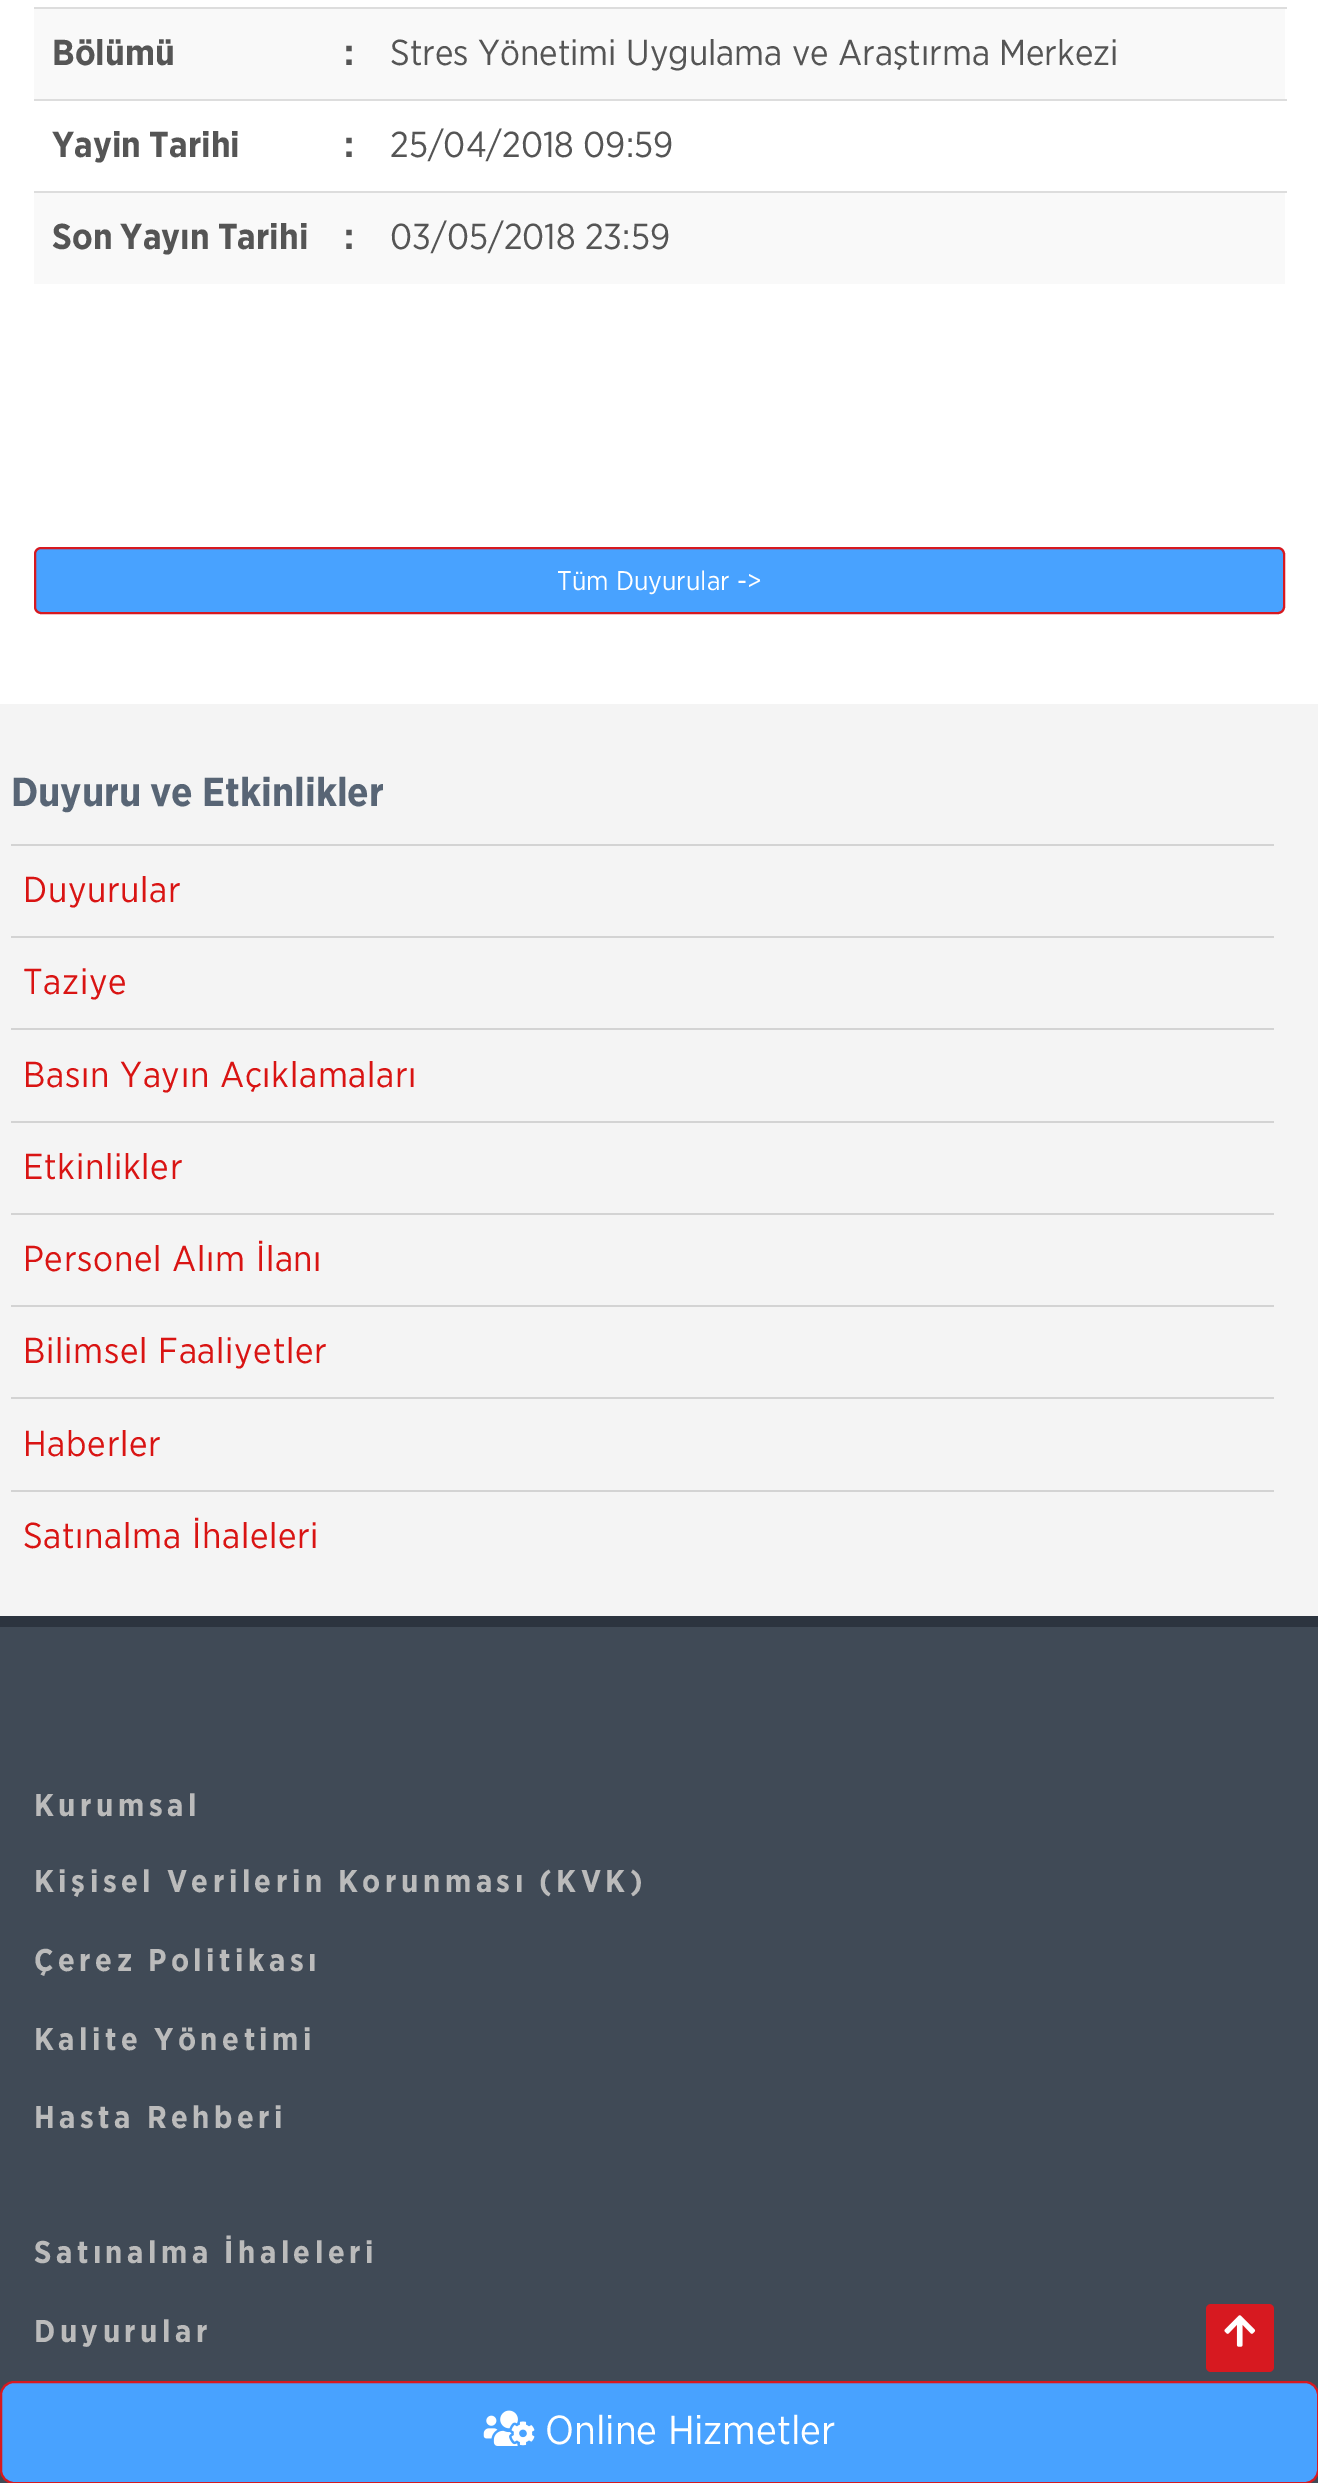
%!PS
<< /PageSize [1318 2483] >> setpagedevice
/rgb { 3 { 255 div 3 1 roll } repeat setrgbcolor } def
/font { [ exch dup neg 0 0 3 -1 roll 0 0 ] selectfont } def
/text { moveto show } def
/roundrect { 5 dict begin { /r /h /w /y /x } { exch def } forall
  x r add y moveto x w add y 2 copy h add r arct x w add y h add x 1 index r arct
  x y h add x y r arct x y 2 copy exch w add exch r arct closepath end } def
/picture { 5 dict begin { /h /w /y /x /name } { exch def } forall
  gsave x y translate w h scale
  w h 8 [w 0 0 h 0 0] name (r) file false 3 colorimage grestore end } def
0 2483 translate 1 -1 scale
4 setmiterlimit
244 244 244 rgb
0 0 1318 2483 rectfill
255 255 255 rgb
0 0 1318 704 rectfill
249 249 249 rgb
34 9 1251 90 rectfill
221 221 221 rgb
34 7 1253 2 rectfill
34 99 1253 2 rectfill
249 249 249 rgb
34 193 1251 91 rectfill
221 221 221 rgb
34 191 1253 2 rectfill
72 162 255 rgb
35 548 1249 65 6 roundrect gsave fill grestore
215 25 32 rgb
2 setlinewidth
stroke
211 211 211 rgb
11 844 1263 2 rectfill
11 936 1263 2 rectfill
11 1028 1263 2 rectfill
11 1121 1263 2 rectfill
11 1213 1263 2 rectfill
11 1305 1263 2 rectfill
11 1397 1263 2 rectfill
11 1490 1263 2 rectfill
64 74 86 rgb
0 1627 1318 856 rectfill
44 52 63 rgb
0 1616 1318 11 rectfill
215 25 32 rgb
1206 2304 68 68 5 roundrect fill
(img_01.rgb) 1224 2315 32 32 picture
72 162 255 rgb
1 2382 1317 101 13 roundrect gsave fill grestore
215 25 32 rgb
stroke
(img_02.rgb) 483 2410 52 36 picture
/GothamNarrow-Bold 36 font
85 85 85 rgb
(Bölümü) 52 65 text
(:) 344 65 text
/GothamNarrow-Regular 36 font
(Stres Yönetimi Uygulama ve Araştırma Merkezi) 390 65 text
/GothamNarrow-Bold 36 font
(Yayin Tarihi) 52 157 text
(:) 344 157 text
/GothamNarrow-Regular 36 font
(25/04/2018 09:59) 390 157 text
/GothamNarrow-Bold 36 font
(Son Yayın Tarihi) 52 249 text
(:) 344 249 text
/GothamNarrow-Regular 36 font
(03/05/2018 23:59) 390 249 text
/GothamNarrow-Regular 27 font
255 255 255 rgb
(Tüm Duyurular ->) 557 590 text
/GothamNarrow-Bold 40.5 font
88 101 117 rgb
(Duyuru ve Etkinlikler) 11 806 text
/GothamNarrow-Regular 36 font
217 20 19 rgb
23 902 moveto 0.7 0 (Duyurular) ashow
23 994 moveto 0.7 0 (Taziye) ashow
23 1087 moveto 0.7 0 (Basın Yayın Açıklamaları) ashow
23 1179 moveto 0.7 0 (Etkinlikler) ashow
23 1271 moveto 0.7 0 (Personel Alım İlanı) ashow
23 1363 moveto 0.7 0 (Bilimsel Faaliyetler) ashow
23 1456 moveto 0.7 0 (Haberler) ashow
23 1548 moveto 0.7 0 (Satınalma İhaleleri) ashow
/GothamNarrow-Bold 31.5 font
187 187 187 rgb
34 1816 moveto 4.5 0 (Kurumsal) ashow
34 1892 moveto 4.5 0 (Kişisel Verilerin Korunması \(KVK\)) ashow
34 1971 moveto 4.5 0 (Çerez Politikası) ashow
34 2050 moveto 4.5 0 (Kalite Yönetimi) ashow
34 2128 moveto 4.5 0 (Hasta Rehberi) ashow
34 2263 moveto 4.5 0 (Satınalma İhaleleri) ashow
34 2342 moveto 4.5 0 (Duyurular) ashow
/GothamNarrow-Regular 40.5 font
255 255 255 rgb
(Online Hizmetler) 545 2444 text
showpage
